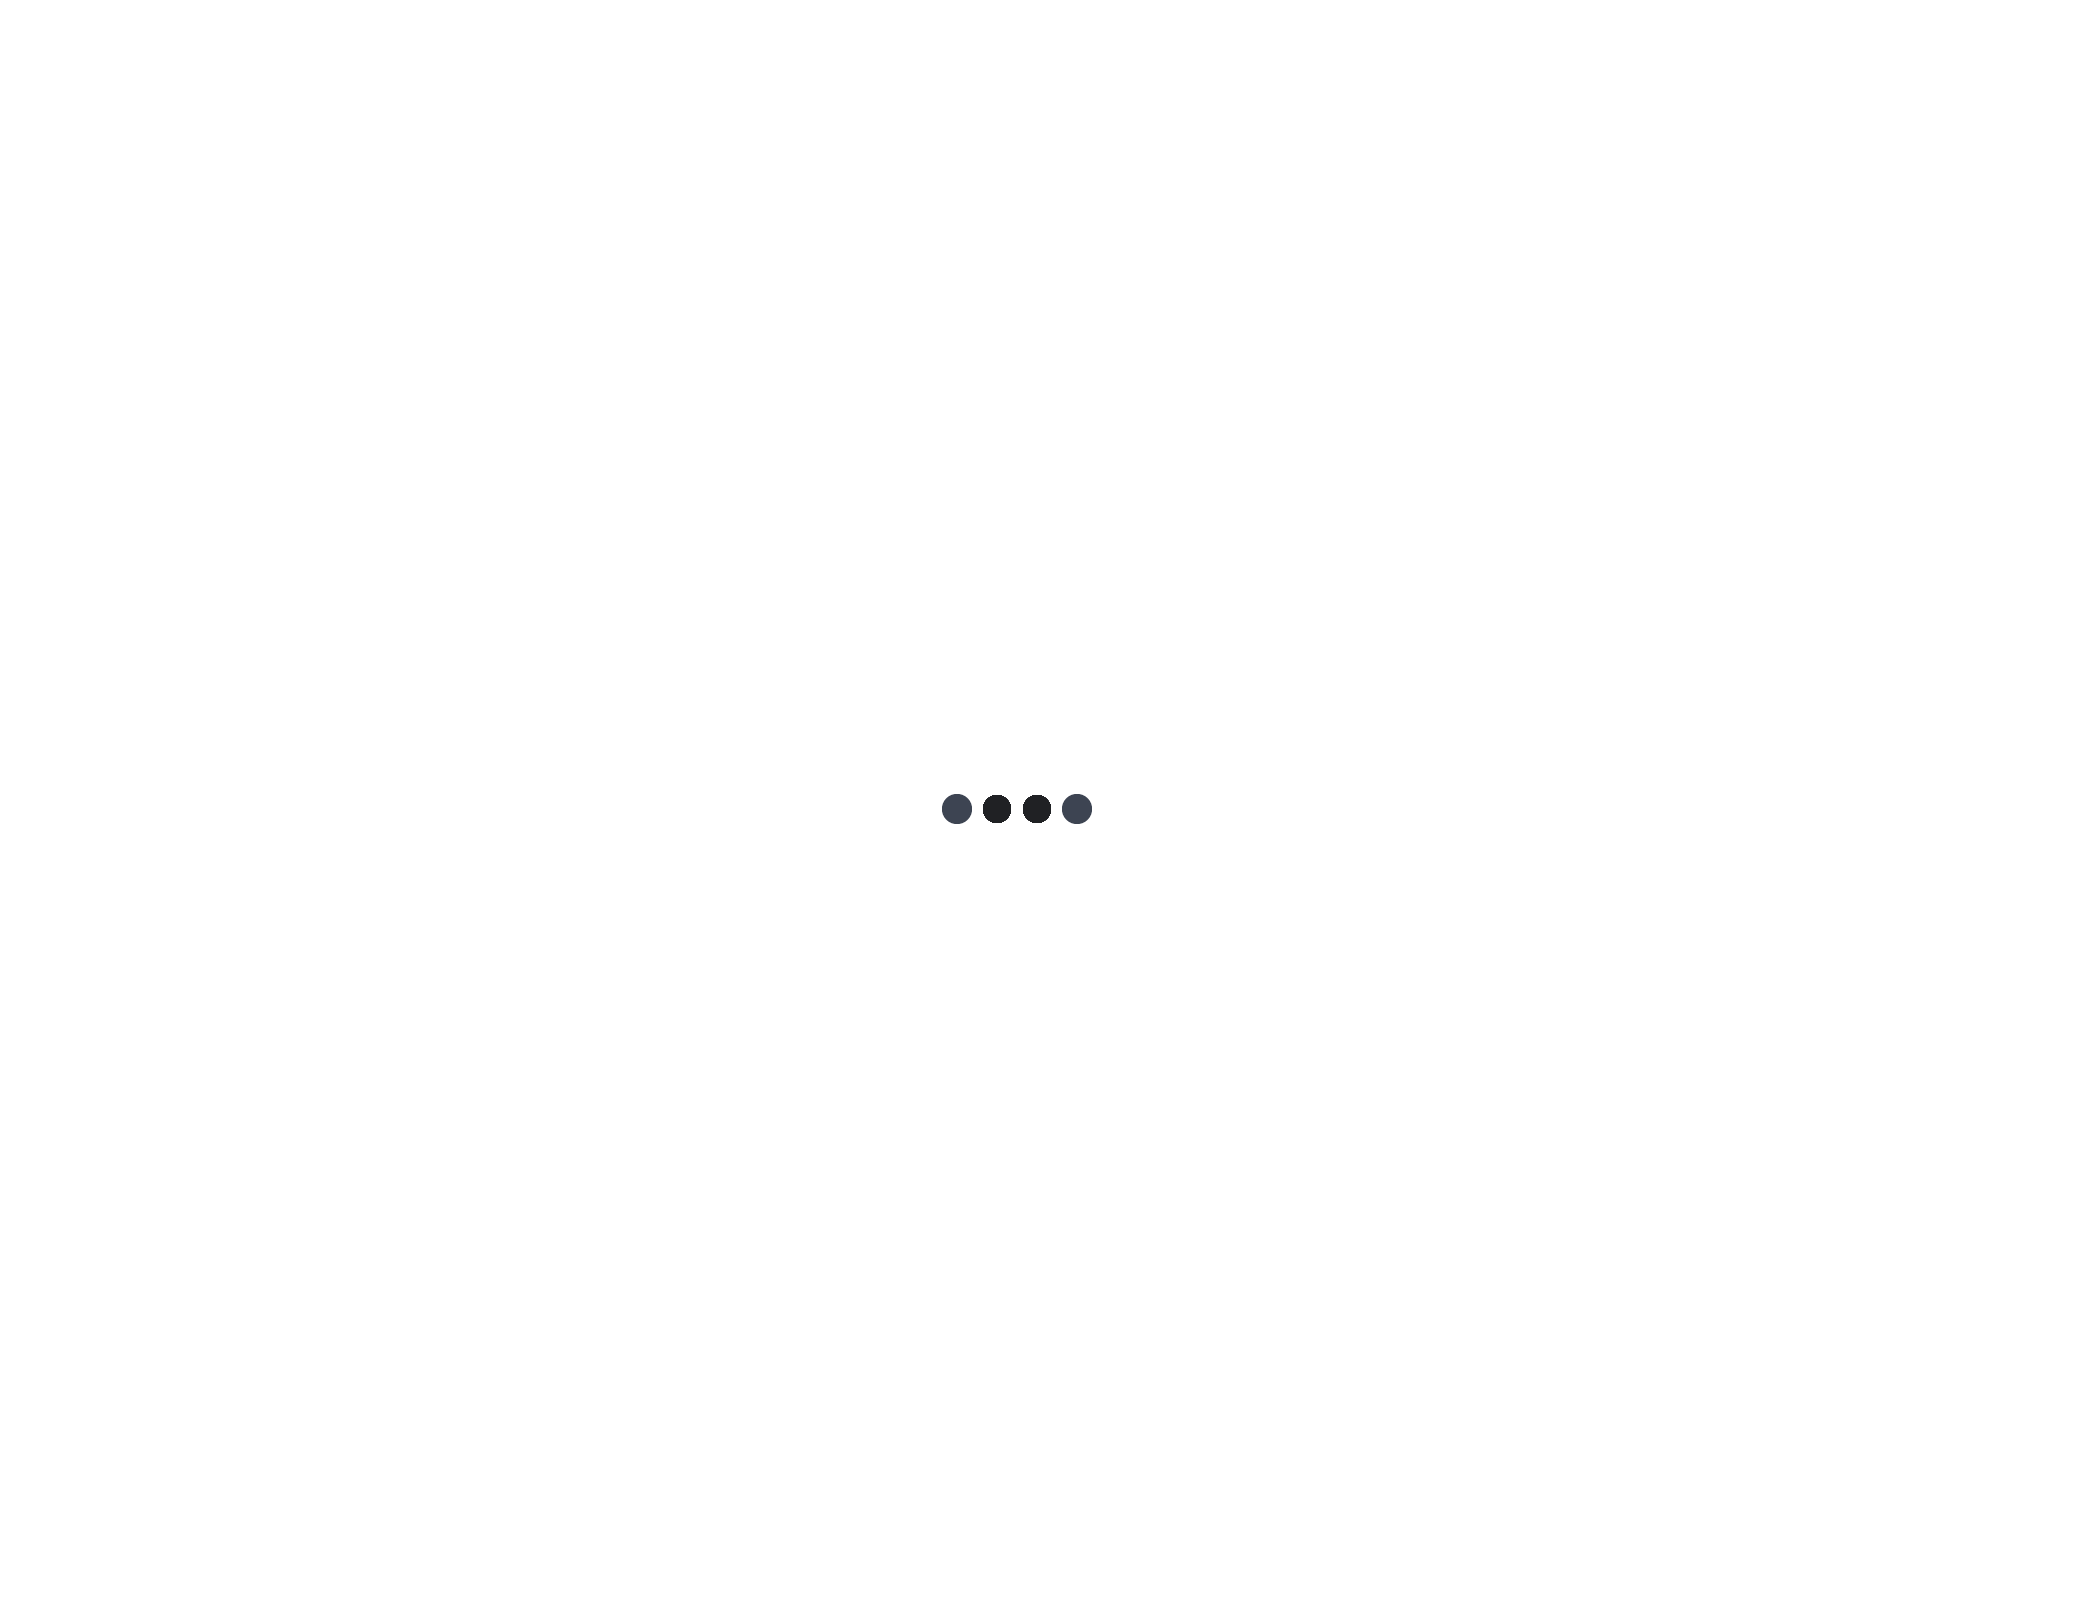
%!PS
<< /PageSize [2083 1618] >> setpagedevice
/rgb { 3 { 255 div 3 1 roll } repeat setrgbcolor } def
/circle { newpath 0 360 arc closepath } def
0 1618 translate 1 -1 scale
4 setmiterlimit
255 255 255 rgb
0 0 2083 1618 rectfill
gsave 1022 794 moveto 30 0 rlineto 0 30 rlineto -30 0 rlineto closepath clip newpath 1037 809 translate 15 15 scale
<< /ShadingType 3 /ColorSpace /DeviceRGB /Coords [0 0 0 0 0 1] /Extend [true true] /Function << /FunctionType 3 /Domain [0 1] /Functions [<< /FunctionType 2 /Domain [0 1] /C0 [0.125 0.129 0.141] /C1 [0.125 0.129 0.141] /N 1 >> << /FunctionType 2 /Domain [0 1] /C0 [0.125 0.129 0.141] /C1 [1 1 1] /N 1 >>] /Bounds [0.95] /Encode [0 1 0 1] >> >> shfill grestore
gsave 982 794 moveto 30 0 rlineto 0 30 rlineto -30 0 rlineto closepath clip newpath 997 809 translate 15 15 scale
<< /ShadingType 3 /ColorSpace /DeviceRGB /Coords [0 0 0 0 0 1] /Extend [true true] /Function << /FunctionType 3 /Domain [0 1] /Functions [<< /FunctionType 2 /Domain [0 1] /C0 [0.125 0.129 0.141] /C1 [0.125 0.129 0.141] /N 1 >> << /FunctionType 2 /Domain [0 1] /C0 [0.125 0.129 0.141] /C1 [1 1 1] /N 1 >>] /Bounds [0.95] /Encode [0 1 0 1] >> >> shfill grestore
61 68 82 rgb
957 809 15 circle fill
1077 809 15 circle fill
showpage
